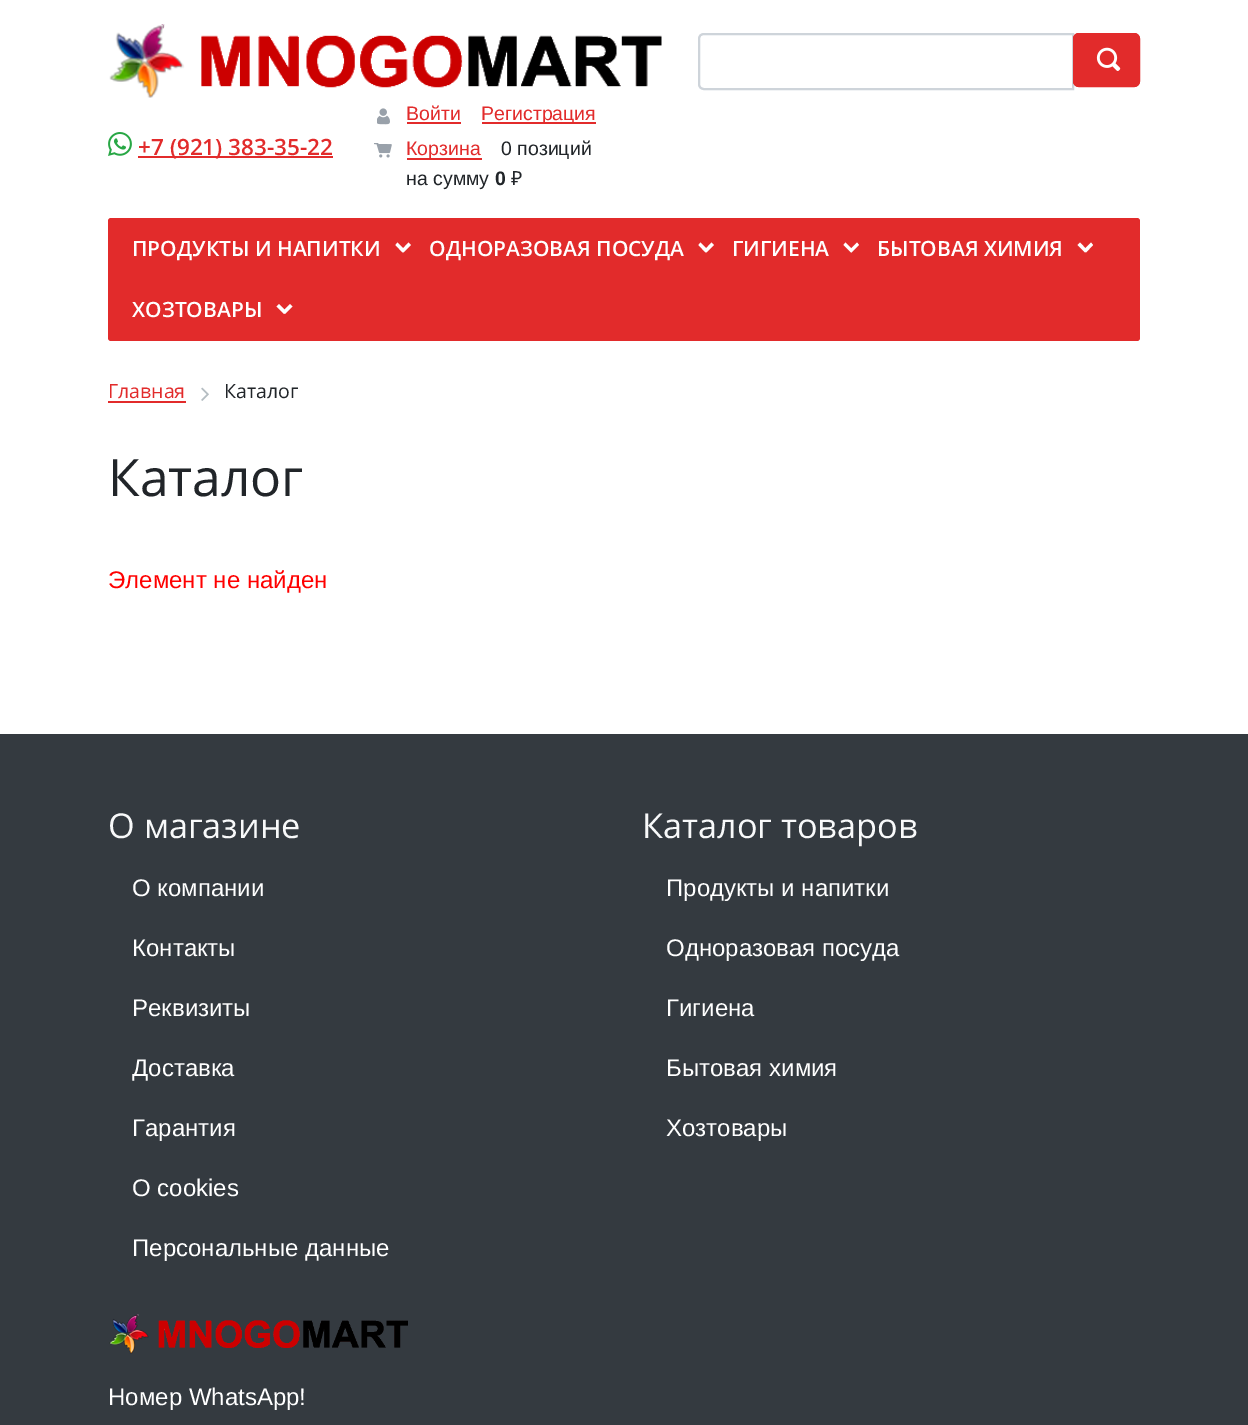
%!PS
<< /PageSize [1248 1425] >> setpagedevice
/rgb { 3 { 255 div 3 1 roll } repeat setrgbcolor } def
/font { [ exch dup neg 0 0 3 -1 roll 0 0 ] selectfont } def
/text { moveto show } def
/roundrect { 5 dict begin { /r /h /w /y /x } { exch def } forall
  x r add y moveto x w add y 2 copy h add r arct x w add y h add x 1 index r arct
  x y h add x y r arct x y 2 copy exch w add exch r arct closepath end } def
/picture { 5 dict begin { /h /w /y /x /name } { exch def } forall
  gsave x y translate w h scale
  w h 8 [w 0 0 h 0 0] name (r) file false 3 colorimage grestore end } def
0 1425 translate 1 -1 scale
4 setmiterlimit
255 255 255 rgb
0 0 1248 1425 rectfill
(img_01.rgb) 109 24 553 74 picture
206 212 218 rgb
2 setlinewidth
704 34 moveto 369 0 rlineto 0 55 rlineto -369 0 rlineto -3 0 -5 -2 -5 -5 rcurveto 0 -45 rlineto 0 -3 2 -5 5 -5 rcurveto closepath stroke
226 43 43 rgb
1073 33 67 54 6 roundrect fill
(img_02.rgb) 1096 47 25 24 picture
1074 34 65 52 5 roundrect stroke
(img_03.rgb) 108 132 24 24 picture
138 156 195 2 rectfill
(img_04.rgb) 377 108 13 17 picture
407 122 54 2 rectfill
482 122 114 2 rectfill
(img_05.rgb) 374 143 18 15 picture
407 158 75 2 rectfill
108 218 1032 123 3 roundrect fill
255 255 255 rgb
401.5 250 moveto 7 -7.5 rlineto 2.5 2.5 rlineto -7.5 7.5 rlineto closepath fill
397.5 242.5 moveto 7.5 7.5 rlineto -2.5 2.5 rlineto -7 -7.5 rlineto closepath fill
704.5 250 moveto 7 -7.5 rlineto 2.5 2.5 rlineto -7.5 7.5 rlineto closepath fill
700.5 242.5 moveto 7.5 7.5 rlineto -2.5 2.5 rlineto -7 -7.5 rlineto closepath fill
849.5 250 moveto 7.5 -7.5 rlineto 2 2.5 rlineto -7.5 7.5 rlineto closepath fill
845.5 242.5 moveto 7.5 7.5 rlineto -2 2.5 rlineto -7.5 -7.5 rlineto closepath fill
1083.5 250 moveto 7.5 -7.5 rlineto 2 2.5 rlineto -7 7.5 rlineto closepath fill
1080 242.5 moveto 7 7.5 rlineto -2 2.5 rlineto -7.5 -7.5 rlineto closepath fill
282.5 311.5 moveto 7.5 -7.5 rlineto 2.5 2.5 rlineto -7.5 7.5 rlineto closepath fill
279 304 moveto 7.5 7.5 rlineto -2.5 2.5 rlineto -7.5 -7.5 rlineto closepath fill
226 43 43 rgb
108 401 78 2 rectfill
(img_06.rgb) 201 387 8 14 picture
52 58 64 rgb
0 734 1248 691 rectfill
(img_07.rgb) 109 1314 299 40 picture
/OpenSans-SemiBold 22.5 font
226 43 43 rgb
(+7 \(921\) 383-35-22) 138 155 text
/LiberationSans-Regular 19.5 font
(Войти) 406 120 text
(Регистрация) 481 120 text
(Корзина) 406 155 text
33 37 41 rgb
(0 позиций) 501 155 text
(на сумму) 406 185 text
/LiberationSans-Bold 19.5 font
(0) 495 185 text
/NotoSans-Regular 19.5 font
(₽) 511 185 text
/OpenSans-SemiBold 21 font
255 255 255 rgb
(ПРОДУКТЫ И НАПИТКИ) 132 256 text
(ОДНОРАЗОВАЯ ПОСУДА) 429 256 text
(ГИГИЕНА) 732 256 text
(БЫТОВАЯ ХИМИЯ) 877 256 text
(ХОЗТОВАРЫ) 132 317 text
/OpenSans-Regular 19.5 font
226 43 43 rgb
(Главная) 108 398 text
33 37 41 rgb
(Каталог) 224 398 text
/OpenSans-Regular 51.5 font
(Каталог) 108 496 text
/LiberationSans-Regular 24 font
255 0 0 rgb
(Элемент не найден) 108 588 text
/OpenSans-Regular 34.25 font
248 249 250 rgb
(О магазине) 108 838 text
/LiberationSans-Regular 24 font
255 255 255 rgb
(О компании) 132 896 text
(Контакты) 132 956 text
(Реквизиты) 132 1016 text
(Доставка) 132 1076 text
(Гарантия) 132 1136 text
(О cookies) 132 1196 text
(Персональные данные) 132 1256 text
/OpenSans-Regular 34.25 font
248 249 250 rgb
(Каталог товаров) 642 838 text
/LiberationSans-Regular 24 font
255 255 255 rgb
(Продукты и напитки) 666 896 text
(Одноразовая посуда) 666 956 text
(Гигиена) 666 1016 text
(Бытовая химия) 666 1076 text
(Хозтовары) 666 1136 text
(Номер WhatsApp!) 108 1405 text
showpage
